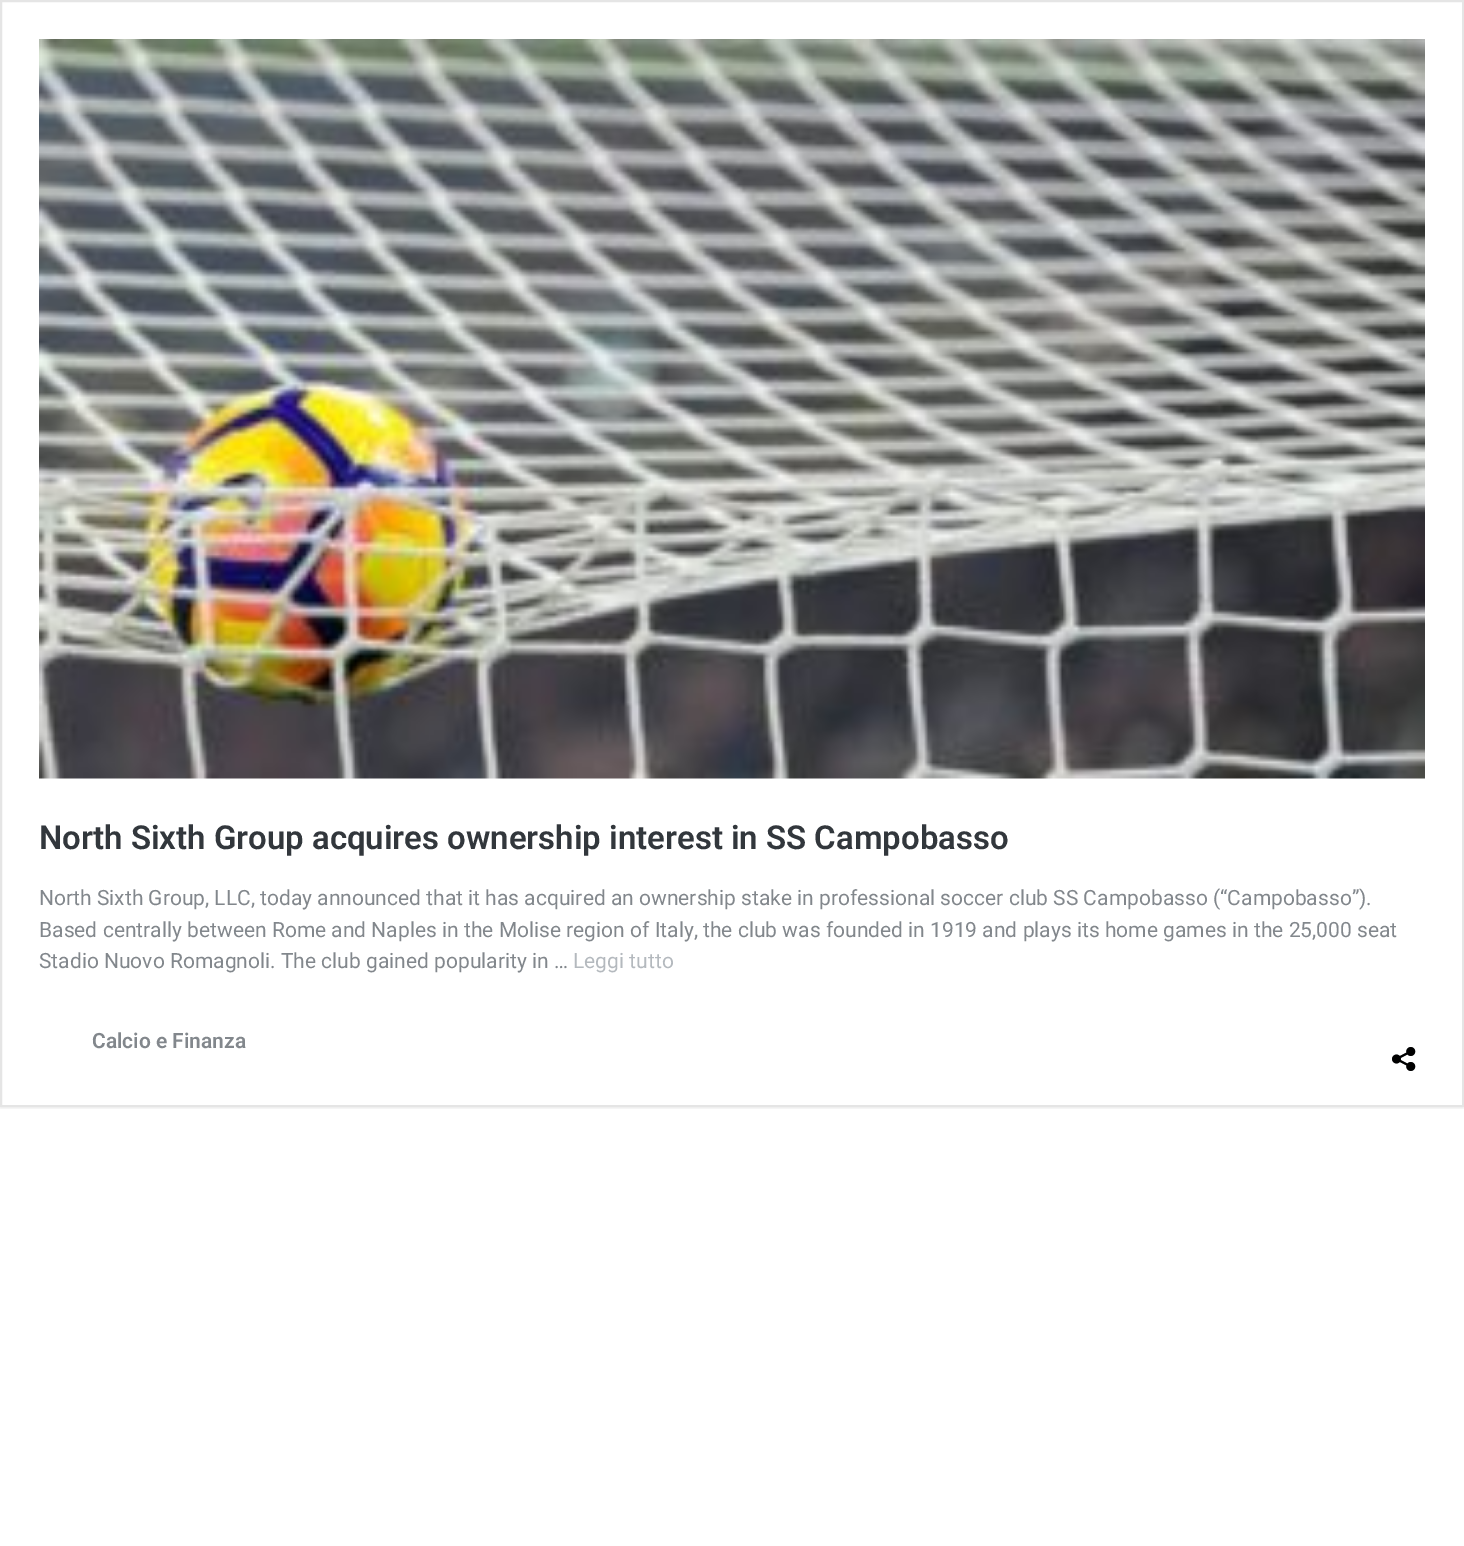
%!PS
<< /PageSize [1464 1546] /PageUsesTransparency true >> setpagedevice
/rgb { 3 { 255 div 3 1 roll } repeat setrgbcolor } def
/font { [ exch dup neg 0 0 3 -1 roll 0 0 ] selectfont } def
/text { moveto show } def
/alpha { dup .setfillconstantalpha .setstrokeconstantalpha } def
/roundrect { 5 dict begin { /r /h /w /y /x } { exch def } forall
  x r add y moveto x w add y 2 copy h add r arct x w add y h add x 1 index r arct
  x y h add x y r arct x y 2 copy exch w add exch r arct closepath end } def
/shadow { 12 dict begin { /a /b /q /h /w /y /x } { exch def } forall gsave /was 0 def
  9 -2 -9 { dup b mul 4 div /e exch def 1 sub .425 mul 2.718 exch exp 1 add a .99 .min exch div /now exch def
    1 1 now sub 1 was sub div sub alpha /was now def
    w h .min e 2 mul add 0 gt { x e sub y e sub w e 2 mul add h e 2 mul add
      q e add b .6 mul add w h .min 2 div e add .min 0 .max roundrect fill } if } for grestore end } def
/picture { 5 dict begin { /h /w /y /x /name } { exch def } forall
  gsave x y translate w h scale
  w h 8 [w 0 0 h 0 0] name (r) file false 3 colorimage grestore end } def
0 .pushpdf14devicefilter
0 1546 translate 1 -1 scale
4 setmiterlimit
255 255 255 rgb
0 0 1464 1546 rectfill
gsave
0 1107 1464 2 rectclip
0 0 0 rgb
0 2 1464 1107 0 1 0.05 shadow
grestore
229 229 229 rgb
2 setlinewidth
1 1 1462 1105 rectstroke
(img_01.rgb) 39 39 1386 740 picture
(img_02.rgb) 1392 1047 24 24 picture
(img_03.rgb) 1392 1047 24 24 picture
/Roboto-SemiBold 33 font
50 55 60 rgb
(North Sixth Group acquires ownership interest in SS Campobasso) 39 849 text
/Roboto-Regular 21 font
130 135 140 rgb
(North Sixth Group, LLC, today announced that it has acquired an ownership stake in professional soccer club SS Campobasso \(“Campobasso”\).) 39 905 text
(Based centrally between Rome and Naples in the Molise region of Italy, the club was founded in 1919 and plays its home games in the 25,000 seat) 39 937 text
(Stadio Nuovo Romagnoli. The club gained popularity in …) 39 968 text
180 185 190 rgb
(Leggi tutto) 573 968 text
/Roboto-SemiBold 21 font
130 135 140 rgb
(Calcio e Finanza) 92 1048 text
.poppdf14devicefilter showpage
